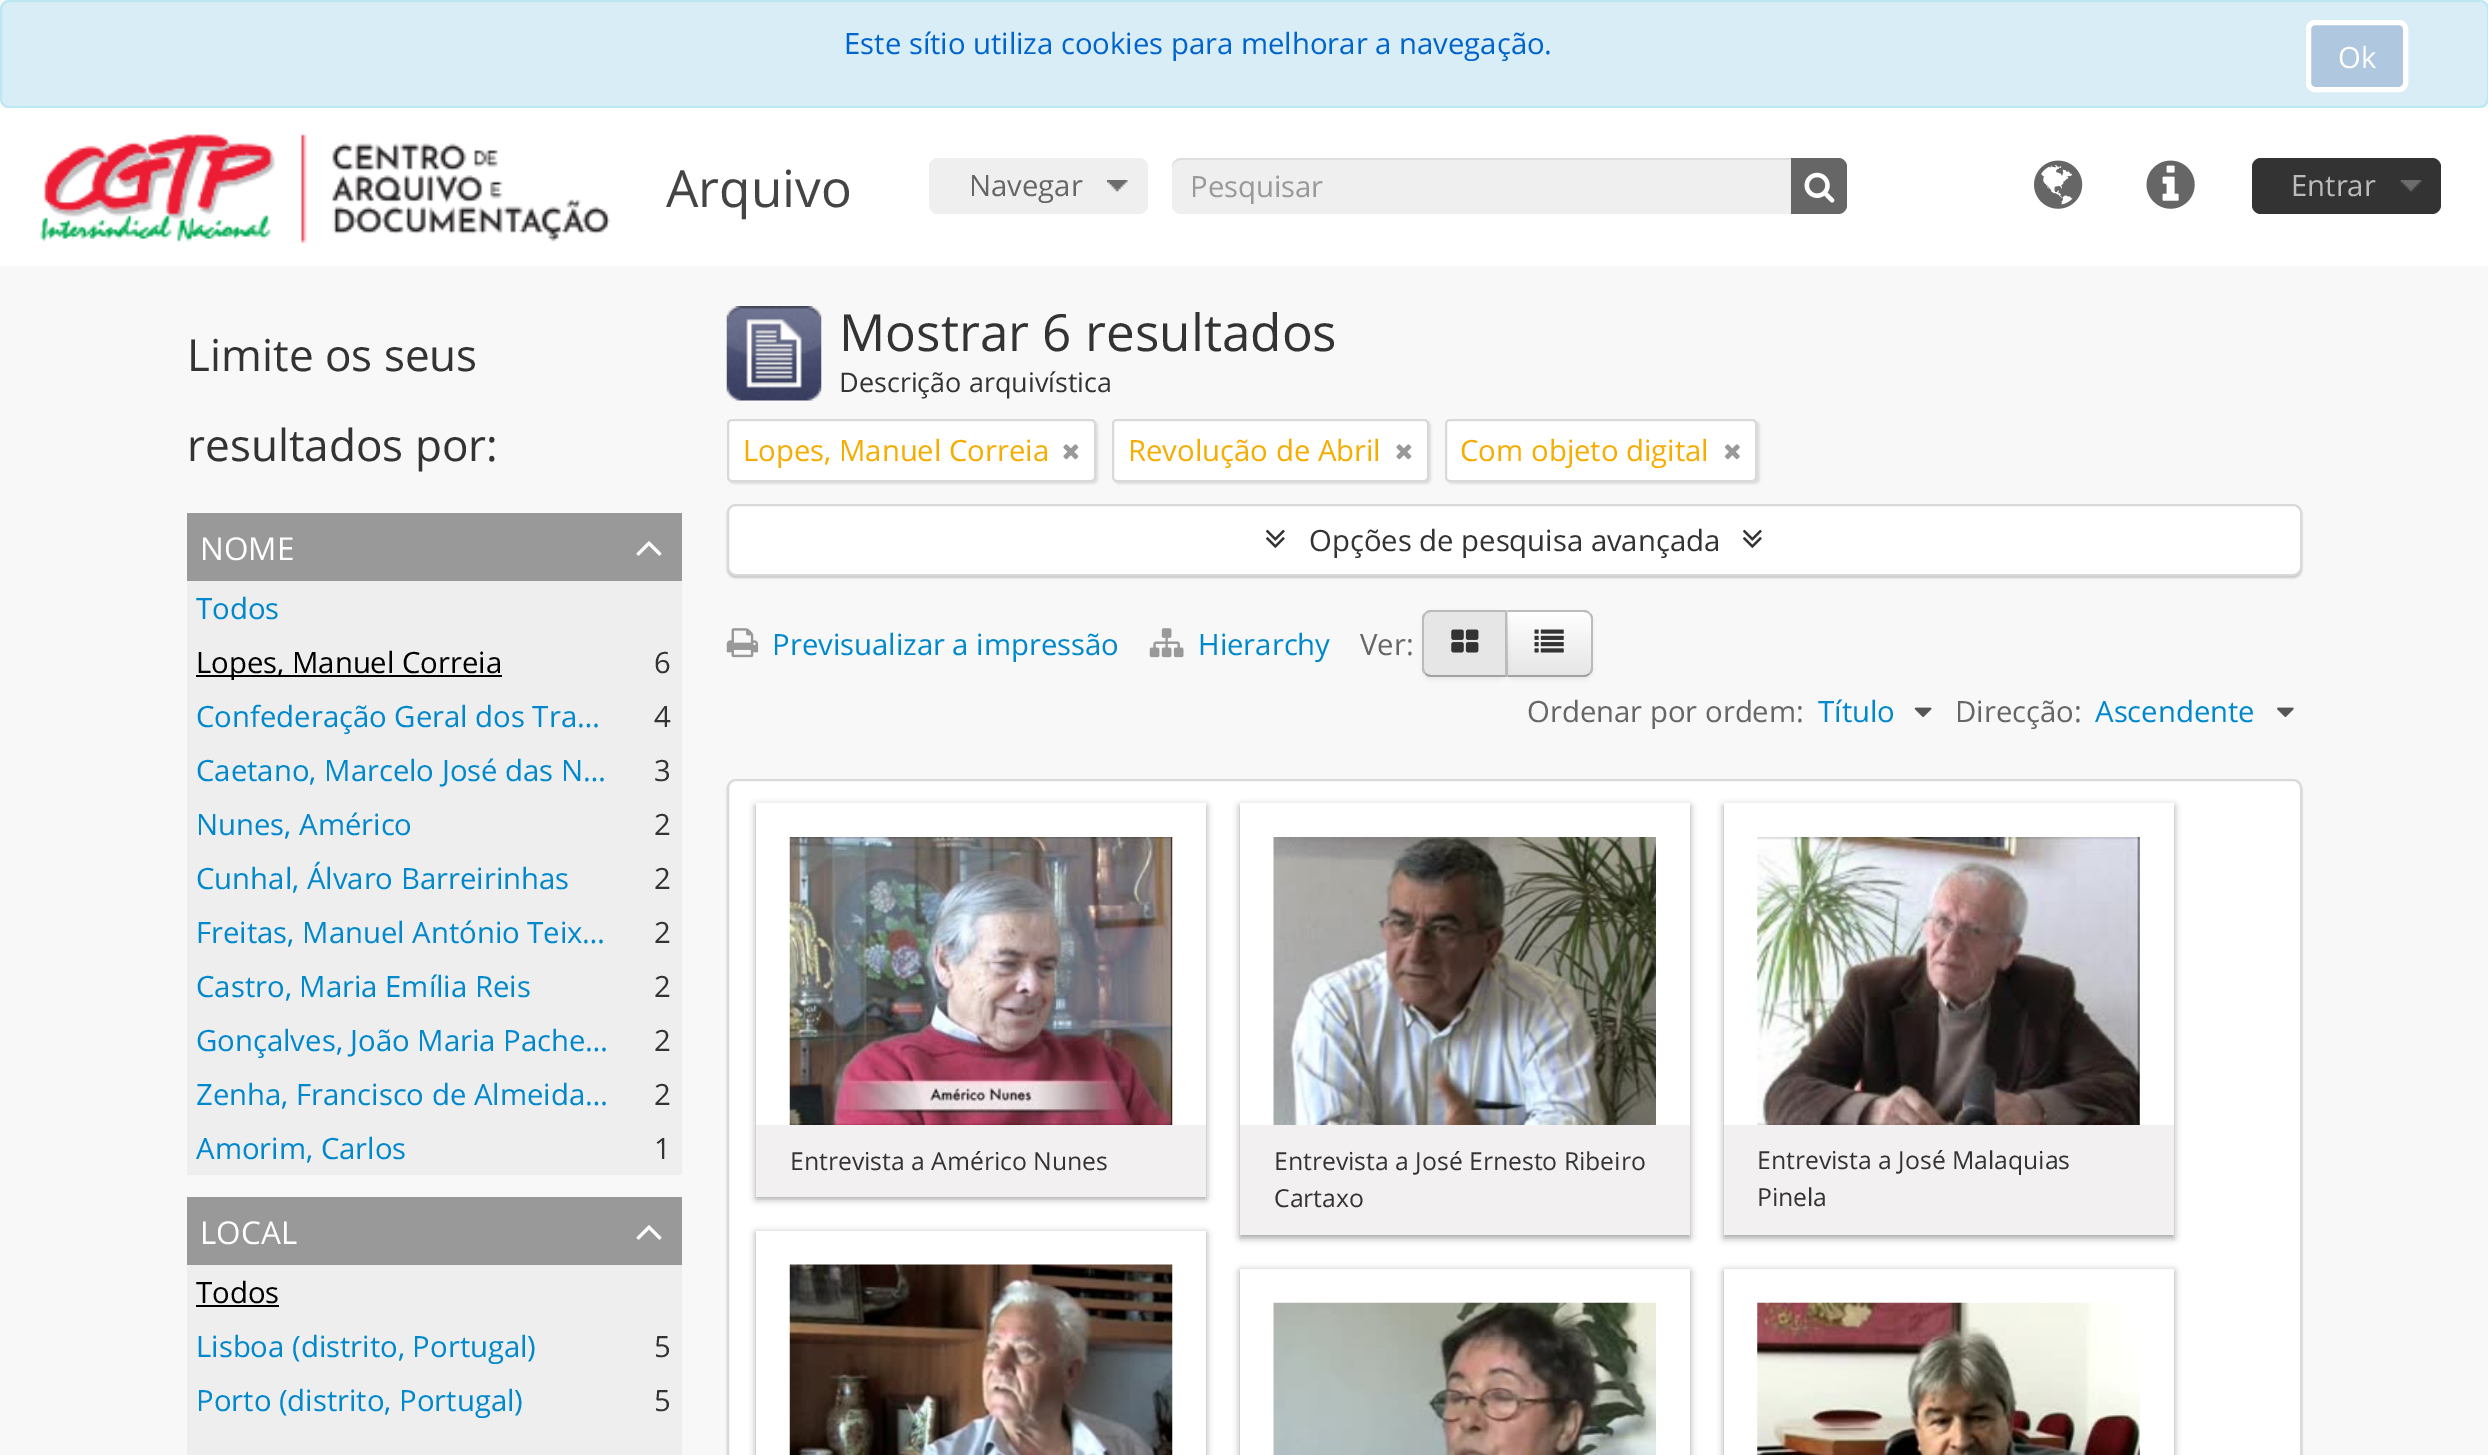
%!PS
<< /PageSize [2488 1455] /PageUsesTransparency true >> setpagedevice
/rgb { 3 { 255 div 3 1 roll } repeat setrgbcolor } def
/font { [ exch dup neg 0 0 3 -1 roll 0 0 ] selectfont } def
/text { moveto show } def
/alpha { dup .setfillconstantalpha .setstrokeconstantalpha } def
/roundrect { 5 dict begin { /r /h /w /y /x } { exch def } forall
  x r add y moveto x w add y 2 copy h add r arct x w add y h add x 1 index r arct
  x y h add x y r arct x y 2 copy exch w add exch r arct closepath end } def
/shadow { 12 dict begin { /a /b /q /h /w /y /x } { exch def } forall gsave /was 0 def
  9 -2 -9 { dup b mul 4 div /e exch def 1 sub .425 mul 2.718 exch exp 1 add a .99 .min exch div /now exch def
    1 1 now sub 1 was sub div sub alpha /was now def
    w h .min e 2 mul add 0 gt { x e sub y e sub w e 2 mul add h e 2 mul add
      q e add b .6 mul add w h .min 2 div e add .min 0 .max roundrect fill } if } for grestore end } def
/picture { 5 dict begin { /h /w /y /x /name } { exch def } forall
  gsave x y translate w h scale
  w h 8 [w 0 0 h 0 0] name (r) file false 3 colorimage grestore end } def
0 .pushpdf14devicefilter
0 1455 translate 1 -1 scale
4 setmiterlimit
248 248 248 rgb
0 0 2488 1455 rectfill
217 237 247 rgb
1 1 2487 106 8 roundrect gsave fill grestore
188 232 241 rgb
2 setlinewidth
stroke
175 200 223 rgb
2308.5 22.5 97 67 6.5 roundrect gsave fill grestore
255 255 255 rgb
5 setlinewidth
stroke
0 108 2488 158 rectfill
(img_01.rgb) 40 134 571 109 picture
239 239 239 rgb
929 158 219 56 9 roundrect fill
(img_02.rgb) 1107 180 21 12 picture
1172 158 675 56 9 roundrect fill
0.07 alpha
0 0 0 rgb
1181 160 moveto 657 0 rlineto 5 0 9 4 9 9 rcurveto 0 -2 rlineto 0 -5 -4 -9 -9 -9 rcurveto -657 0 rlineto -5 0 -9 4 -9 9 rcurveto 0 2 rlineto 0 -5 4 -9 9 -9 rcurveto closepath fill
1 alpha
102 102 102 rgb
1791 158 moveto 47 0 rlineto 5 0 9 4 9 9 rcurveto 0 38 rlineto 0 5 -4 9 -9 9 rcurveto -47 0 rlineto closepath fill
(img_03.rgb) 1804 172 31 31 picture
(img_04.rgb) 2034 160 49 49 picture
(img_05.rgb) 2146 160 49 49 picture
51 51 51 rgb
2252 158 189 56 9 roundrect fill
(img_06.rgb) 2400 180 22 12 picture
153 153 153 rgb
187 513 495 68 rectfill
(img_07.rgb) 636 541 26 15 picture
238 238 238 rgb
187 581 495 594 rectfill
0 0 0 rgb
196 675 306 2 rectfill
153 153 153 rgb
187 1197 495 68 rectfill
(img_07.rgb) 636 1225 26 15 picture
238 238 238 rgb
187 1265 495 190 rectfill
0 0 0 rgb
196 1305 83 2 rectfill
(img_08.rgb) 726 306 96 95 picture
729 421 369 63 5 1 0.1 shadow
255 255 255 rgb
728 420 367 61 4 roundrect gsave fill grestore
217 217 217 rgb
2 setlinewidth
stroke
(img_09.rgb) 1063 444 16 16 picture
0 0 0 rgb
1114 421 317 63 5 1 0.1 shadow
255 255 255 rgb
1113 420 315 61 4 roundrect gsave fill grestore
217 217 217 rgb
stroke
(img_09.rgb) 1396 444 16 16 picture
0 0 0 rgb
1447 421 313 63 5 1 0.1 shadow
255 255 255 rgb
1446 420 310 61 4 roundrect gsave fill grestore
217 217 217 rgb
stroke
(img_10.rgb) 1724 444 16 16 picture
0 0 0 rgb
727 506 1575 72 9 1 0.2 shadow
255 255 255 rgb
728 505 1573 70 8 roundrect gsave fill grestore
217 217 217 rgb
stroke
(img_11.rgb) 1266 529 19 19 picture
(img_11.rgb) 1743 529 19 19 picture
(img_12.rgb) 726 628 33 30 picture
(img_13.rgb) 1149 628 35 30 picture
0 0 0 rgb
1505 612 88 68 9 2 0.05 shadow
245 245 245 rgb
1505 610 moveto 79 0 rlineto 5 0 9 4 9 9 rcurveto 0 49 rlineto 0 5 -4 9 -9 9 rcurveto -79 0 rlineto closepath fill
gsave
1505 610 moveto 79 0 rlineto 5 0 9 4 9 9 rcurveto 0 49 rlineto 0 5 -4 9 -9 9 rcurveto -79 0 rlineto closepath clip newpath
gsave 1508 612 moveto 85 0 rlineto 0 63 rlineto -85 0 rlineto closepath clip newpath
<< /ShadingType 2 /ColorSpace /DeviceRGB /Coords [1549 612 1549 675] /Extend [true true] /Function << /FunctionType 2 /Domain [0 1] /C0 [1 1 1] /C1 [0.902 0.902 0.902] /N 1 >> >> shfill grestore
grestore
187 187 187 rgb
1508 612 moveto 76 0 rlineto 2 0 4 1 5 2 rcurveto 1 -1 rlineto -1 -2 -4 -3 -6 -3 rcurveto -78 0 rlineto closepath fill
1590 613 moveto 2 1 3 3 3 6 rcurveto 0 49 rlineto 0 3 -1 5 -3 6 rcurveto -1 -1 rlineto 1 -1 2 -3 2 -5 rcurveto 0 -49 rlineto 0 -2 -1 -4 -2 -5 rcurveto closepath fill
162 162 162 rgb
1590 674 moveto -1 2 -4 3 -6 3 rcurveto -78 0 rlineto 2 -3 rlineto 0 1 rlineto 76 0 rlineto 2 0 4 -1 5 -2 rcurveto closepath fill
0 0 0 rgb
1422 612 86 68 9 2 0.05 shadow
230 230 230 rgb
1431 610 moveto 77 0 rlineto 0 67 rlineto -77 0 rlineto -5 0 -9 -4 -9 -9 rcurveto 0 -49 rlineto 0 -5 4 -9 9 -9 rcurveto closepath fill
187 187 187 rgb
1431 610 moveto -2 0 -5 1 -6 3 rcurveto 1 1 rlineto 1 -1 3 -2 5 -2 rcurveto 74 0 rlineto 2 -2 rlineto closepath fill
1508 677 moveto -3 -2 rlineto 0 -63 rlineto 2 -2 rlineto closepath fill
162 162 162 rgb
1507 677 moveto -76 0 rlineto -2 0 -5 -1 -6 -3 rcurveto 1 -1 rlineto 1 1 3 2 5 2 rcurveto 74 0 rlineto closepath fill
187 187 187 rgb
1422 619 moveto 0 49 rlineto 0 3 1 5 3 6 rcurveto 1 -1 rlineto -1 -1 -2 -3 -2 -5 rcurveto 0 -49 rlineto 0 -2 1 -4 2 -5 rcurveto -1 -1 rlineto -2 1 -3 3 -3 6 rcurveto closepath fill
(img_14.rgb) 1451 629 28 24 picture
(img_15.rgb) 1534 629 30 24 picture
(img_16.rgb) 1914 707 18 10 picture
(img_17.rgb) 2277 707 17 10 picture
0 0 0 rgb
727 781 1575 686 9 1 0.2 shadow
255 255 255 rgb
728 780 1573 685 8 roundrect gsave fill grestore
217 217 217 rgb
stroke
25 25 25 rgb
756 806 450 393 0 3.5 0.4 shadow
255 255 255 rgb
756 803 450 322 rectfill
(img_18.rgb) 789 837 384 288 picture
242 240 240 rgb
756 1125 450 72 rectfill
25 25 25 rgb
1240 806 450 432 0 3.5 0.4 shadow
255 255 255 rgb
1240 803 450 322 rectfill
(img_19.rgb) 1273 837 383 288 picture
242 240 240 rgb
1240 1125 450 110 rectfill
25 25 25 rgb
1724 806 450 432 0 3.5 0.4 shadow
255 255 255 rgb
1724 803 450 322 rectfill
(img_20.rgb) 1757 837 383 288 picture
242 240 240 rgb
1724 1125 450 110 rectfill
gsave
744 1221 moveto 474 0 rlineto 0 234 rlineto -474 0 rlineto closepath 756 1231 moveto 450 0 rlineto 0 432 rlineto -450 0 rlineto closepath eoclip newpath
25 25 25 rgb
756 1233 450 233 0 3.5 0.4 shadow
grestore
(img_21.rgb) 789 1264 384 191 picture
25 25 25 rgb
1240 1271 450 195 0 3.5 0.4 shadow
255 255 255 rgb
1240 1269 450 186 rectfill
(img_22.rgb) 1273 1302 383 153 picture
25 25 25 rgb
1724 1271 450 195 0 3.5 0.4 shadow
255 255 255 rgb
1724 1269 450 186 rectfill
(img_23.rgb) 1757 1302 383 153 picture
/OpenSans-Regular 29.25 font
0 100 205 rgb
(Este sítio utiliza cookies para melhorar a navegação.) 844 54 text
255 255 255 rgb
(Ok) 2338 68 text
/OpenSans-Regular 51.25 font
68 68 68 rgb
(Arquivo) 666 207 text
/OpenSans-Regular 29.25 font
102 102 102 rgb
(Navegar) 969 196 text
153 153 153 rgb
(Pesquisar) 1190 197 text
187 187 187 rgb
(Entrar) 2291 196 text
/OpenSans-Regular 44 font
51 51 51 rgb
(Limite os seus) 187 371 text
(resultados por:) 187 461 text
/OpenSans-Regular 31.5 font
255 255 255 rgb
(NOME) 200 560 text
/OpenSans-Regular 29.25 font
0 136 204 rgb
(Todos) 196 619 text
0 0 0 rgb
(Lopes, Manuel Correia) 196 673 text
51 51 51 rgb
(6) 654 673 text
0 136 204 rgb
(Confederação Geral dos Tra…) 196 727 text
51 51 51 rgb
(4) 654 727 text
0 136 204 rgb
(Caetano, Marcelo José das N…) 196 781 text
51 51 51 rgb
(3) 654 781 text
0 136 204 rgb
(Nunes, Américo) 196 835 text
51 51 51 rgb
(2) 654 835 text
0 136 204 rgb
(Cunhal, Álvaro Barreirinhas) 196 889 text
51 51 51 rgb
(2) 654 889 text
0 136 204 rgb
(Freitas, Manuel António Teix…) 196 943 text
51 51 51 rgb
(2) 654 943 text
0 136 204 rgb
(Castro, Maria Emília Reis) 196 997 text
51 51 51 rgb
(2) 654 997 text
0 136 204 rgb
(Gonçalves, João Maria Pache…) 196 1051 text
51 51 51 rgb
(2) 654 1051 text
0 136 204 rgb
(Zenha, Francisco de Almeida…) 196 1105 text
51 51 51 rgb
(2) 654 1105 text
0 136 204 rgb
(Amorim, Carlos) 196 1159 text
51 51 51 rgb
(1) 654 1159 text
/OpenSans-Regular 31.5 font
255 255 255 rgb
(LOCAL) 200 1244 text
/OpenSans-Regular 29.25 font
0 0 0 rgb
(Todos) 196 1303 text
0 136 204 rgb
(Lisboa \(distrito, Portugal\)) 196 1357 text
51 51 51 rgb
(5) 654 1357 text
0 136 204 rgb
(Porto \(distrito, Portugal\)) 196 1411 text
51 51 51 rgb
(5) 654 1411 text
/OpenSans-Regular 51.25 font
(Mostrar 6 resultados) 839 351 text
/OpenSans-Regular 27 font
(Descrição arquivística) 839 392 text
/OpenSans-Regular 29.25 font
246 172 0 rgb
(Lopes, Manuel Correia) 743 461 text
(Revolução de Abril) 1128 461 text
(Com objeto digital) 1460 461 text
51 51 51 rgb
(Opções de pesquisa avançada) 1309 551 text
0 136 204 rgb
(Previsualizar a impressão) 772 655 text
(Hierarchy) 1198 655 text
102 102 102 rgb
(Ver:) 1360 655 text
(Ordenar por ordem:) 1527 722 text
0 136 204 rgb
(Título) 1818 722 text
102 102 102 rgb
(Direcção:) 1955 722 text
0 136 204 rgb
(Ascendente) 2095 722 text
/OpenSans-Regular 24.75 font
51 51 51 rgb
(Entrevista a Américo Nunes) 790 1170 text
(Entrevista a José Ernesto Ribeiro) 1274 1170 text
(Cartaxo) 1274 1207 text
(Entrevista a José Malaquias) 1757 1169 text
(Pinela) 1757 1206 text
.poppdf14devicefilter showpage
